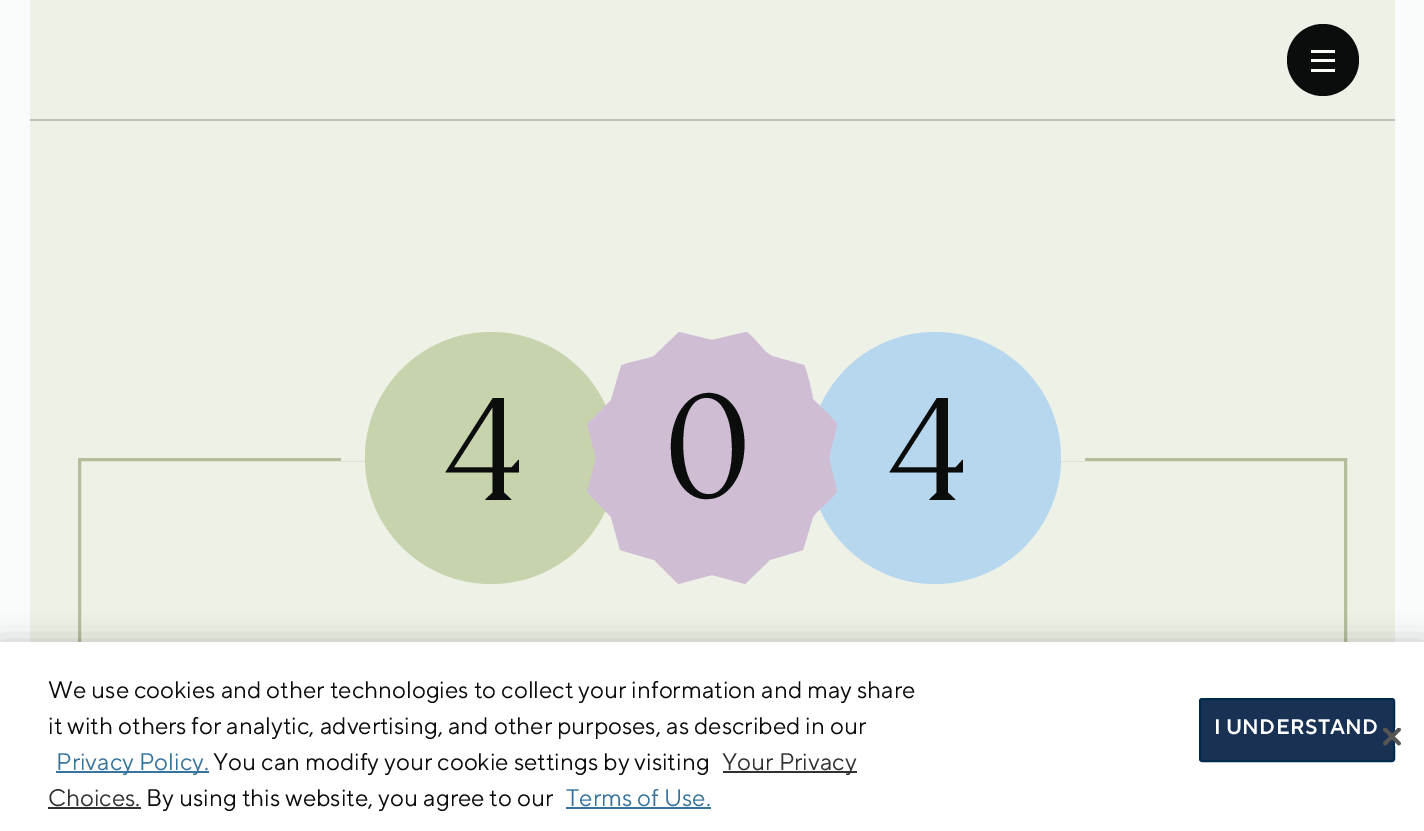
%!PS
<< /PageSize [1424 831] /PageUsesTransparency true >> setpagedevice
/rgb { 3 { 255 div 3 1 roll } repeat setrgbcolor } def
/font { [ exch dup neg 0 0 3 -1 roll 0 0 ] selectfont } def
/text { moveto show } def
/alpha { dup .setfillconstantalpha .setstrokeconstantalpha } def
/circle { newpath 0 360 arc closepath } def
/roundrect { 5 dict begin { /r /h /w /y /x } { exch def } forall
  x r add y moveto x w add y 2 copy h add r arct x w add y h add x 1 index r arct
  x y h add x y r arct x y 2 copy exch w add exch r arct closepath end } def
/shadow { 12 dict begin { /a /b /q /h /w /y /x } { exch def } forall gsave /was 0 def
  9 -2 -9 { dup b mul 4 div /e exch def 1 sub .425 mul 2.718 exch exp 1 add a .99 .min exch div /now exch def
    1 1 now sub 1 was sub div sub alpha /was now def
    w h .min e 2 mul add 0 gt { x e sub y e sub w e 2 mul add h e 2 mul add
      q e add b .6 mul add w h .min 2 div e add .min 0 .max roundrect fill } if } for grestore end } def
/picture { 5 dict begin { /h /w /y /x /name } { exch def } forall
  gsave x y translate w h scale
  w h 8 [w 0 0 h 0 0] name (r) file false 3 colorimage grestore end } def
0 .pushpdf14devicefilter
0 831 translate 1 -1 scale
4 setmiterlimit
250 251 251 rgb
0 0 1424 831 rectfill
237 241 230 rgb
30 0 1365 642 rectfill
11 12 12 rgb
1323 60 36 circle fill
249 251 247 rgb
1311 50 24 3 rectfill
1311 59 24 3 rectfill
1311 69 24 3 rectfill
192 195 186 rgb
30 119 1365 2 rectfill
178 190 156 rgb
3 setlinewidth
79.5 459.5 1266 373 rectstroke
237 241 230 rgb
341 458 744 3 rectfill
198 211 173 rgb
491 458 126 circle fill
183 215 238 rgb
935 458 126 circle fill
207 189 212 rgb
772 356 moveto -6 -4 rlineto -3 -3 -17 -20 -20 -20 rcurveto -34 8 rlineto -33 -8 rlineto -25 24 rlineto -6 3 -31 7 -33 10 rcurveto -10 34 rlineto -24 24 rlineto 9 34 rlineto -9 34 rlineto 24 25 rlineto 9 33 rlineto 34 10 rlineto 24 24 rlineto 34 -9 rlineto 33 9 rlineto 25 -24 rlineto 33 -10 rlineto 10 -33 rlineto 4 -5 rlineto 3 -3 20 -18 20 -21 rcurveto -8 -33 rlineto 8 -33 rlineto 0 -3 -16 -18 -19 -21 rcurveto -5 -5 rlineto -1 -6 rlineto -1 -4 -6 -26 -8 -28 rcurveto closepath fill
0 0 0 rgb
0 642 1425 189 0 13.5 0.2 shadow
255 255 255 rgb
0 642 1424 189 rectfill
54 116 157 rgb
56 771 153 2 rectfill
49 49 49 rgb
723 771 134 2 rectfill
48 807 93 2 rectfill
54 116 157 rgb
566 807 145 2 rectfill
25 50 84 rgb
1200 699 194 62 2 roundrect gsave fill grestore
0 42 78 rgb
2 setlinewidth
stroke
(img_01.rgb) 1383 728 18 18 picture
/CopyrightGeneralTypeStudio-Light 146 font
11 12 12 rgb
(4) 443 500 text
(0) 664 497 text
(4) 887 500 text
/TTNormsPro-Regular 24 font
(We use cookies and other technologies to collect your information and may share) 48 698 text
(it with others for analytic, advertising, and other purposes, as described in our) 48 734 text
54 116 157 rgb
(Privacy Policy.) 56 770 text
11 12 12 rgb
(You can modify your cookie settings by visiting) 213 770 text
49 49 49 rgb
(Your Privacy) 722 770 text
(Choices.) 48 806 text
11 12 12 rgb
(By using this website, you agree to our) 146 806 text
54 116 157 rgb
(Terms of Use.) 566 806 text
/TTNormsPro-SemiBold 21 font
255 255 255 rgb
1214 734 moveto 0.25 0 (I UNDERSTAND) ashow
.poppdf14devicefilter showpage
